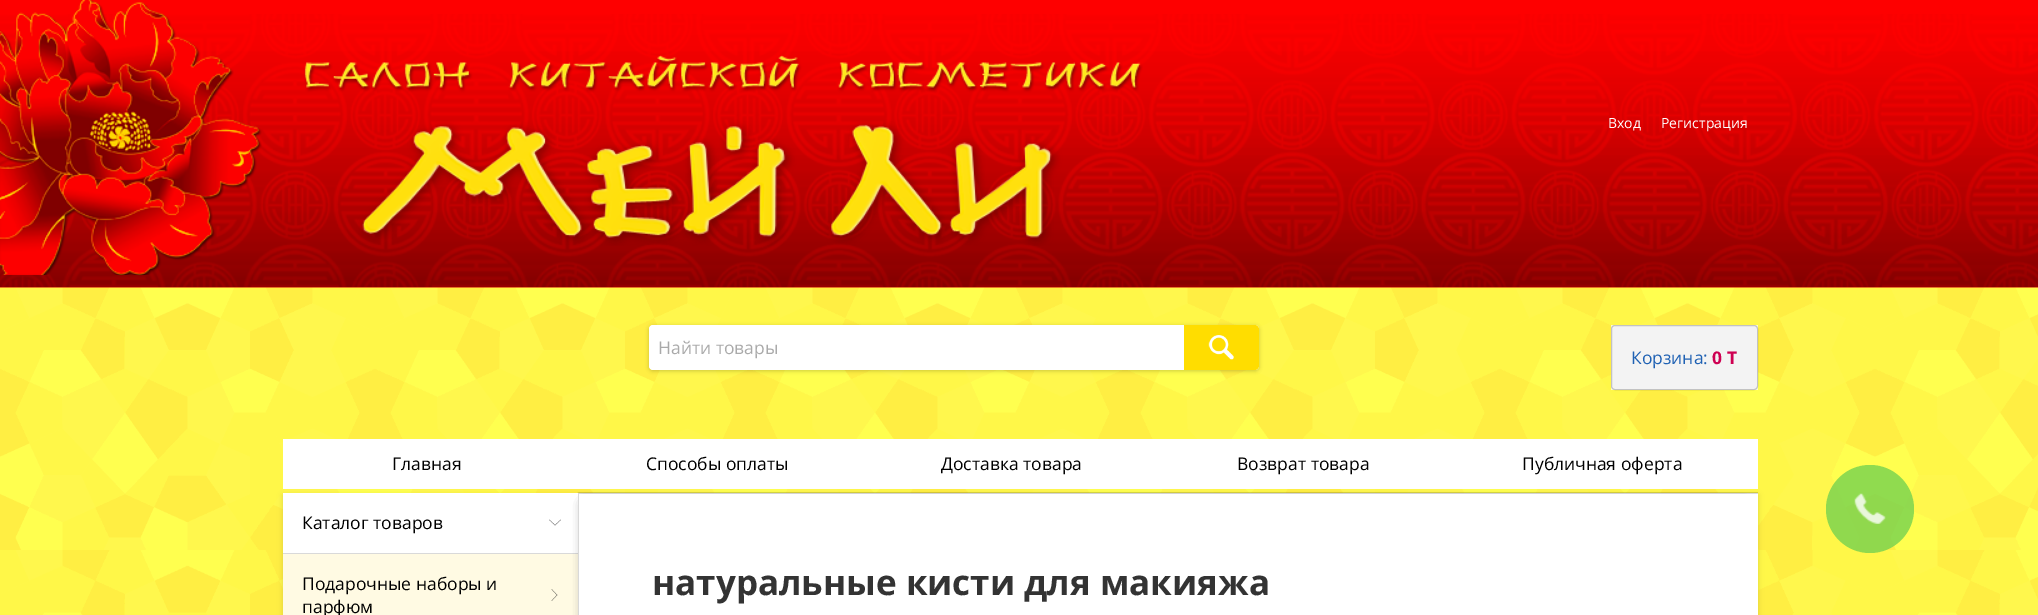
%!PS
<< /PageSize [2038 615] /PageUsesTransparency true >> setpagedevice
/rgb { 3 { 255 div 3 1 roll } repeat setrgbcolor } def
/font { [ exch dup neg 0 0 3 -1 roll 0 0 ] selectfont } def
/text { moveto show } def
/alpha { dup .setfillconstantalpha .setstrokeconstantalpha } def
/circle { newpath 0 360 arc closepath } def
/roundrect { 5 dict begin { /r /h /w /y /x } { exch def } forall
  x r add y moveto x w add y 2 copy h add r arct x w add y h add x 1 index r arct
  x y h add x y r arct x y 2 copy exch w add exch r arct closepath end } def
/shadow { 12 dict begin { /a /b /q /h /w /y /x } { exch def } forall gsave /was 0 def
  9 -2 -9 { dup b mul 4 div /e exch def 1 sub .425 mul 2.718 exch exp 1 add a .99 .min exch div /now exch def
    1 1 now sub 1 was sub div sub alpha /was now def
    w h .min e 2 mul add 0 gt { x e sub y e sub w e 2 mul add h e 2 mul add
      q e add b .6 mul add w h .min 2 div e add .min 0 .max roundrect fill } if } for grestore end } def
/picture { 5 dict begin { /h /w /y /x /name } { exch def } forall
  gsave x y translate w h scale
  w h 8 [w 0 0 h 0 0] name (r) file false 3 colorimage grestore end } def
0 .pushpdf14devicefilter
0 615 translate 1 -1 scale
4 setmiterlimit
254 0 0 rgb
0 0 2038 615 rectfill
(img_02.rgb) 0 14 2038 274 picture
(img_01.rgb) 0 0 262 275 picture
(img_03.rgb) 304 55 839 191 picture
(img_04.rgb) 0 287 2038 263 picture
0 0 0 rgb
649 326 610 45 4 2 0.2 shadow
255 255 255 rgb
649 325 610 45 4 roundrect fill
255 221 0 rgb
1184 325 moveto 71 0 rlineto 2 0 4 2 4 4 rcurveto 0 37 rlineto 0 2 -2 4 -4 4 rcurveto -71 0 rlineto closepath fill
(img_05.rgb) 1208 335 26 25 picture
0.9 alpha
255 255 222 rgb
1611 325 147 65 rectfill
1 alpha
243 243 243 rgb
1611 325 147 65 4 roundrect fill
0.2 alpha
0 0 0 rgb
1611.5 325.5 146 64 3.5 roundrect stroke
1 alpha
255 255 255 rgb
283 439 1475 50 rectfill
(img_06.rgb) 0 550 2038 65 picture
0 0 0 rgb
283 495 1475 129 0 3 0.13 shadow
255 255 255 rgb
578 493 1180 1 rectfill
0.15 alpha
0 0 0 rgb
1758 494 moveto -1180 0 rlineto 1 -2 rlineto 1179 0 rlineto closepath fill
577.5 494 moveto 0 -1.5 rlineto 1.5 0 rlineto closepath fill
1 alpha
255 255 255 rgb
283 493 295 60 rectfill
(img_07.rgb) 549 519 12 7 picture
217 217 217 rgb
283 553 295 1 rectfill
255 250 227 rgb
283 554 295 61 rectfill
(img_08.rgb) 551 589 7 12 picture
0 0 0 rgb
584 504 1160 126 0 5 0.7 shadow
255 255 255 rgb
579 494 1179 121 rectfill
217 217 217 rgb
578 494 1 121 rectfill
0.8 alpha
116 210 79 rgb
1870 509 44 circle fill
1 alpha
(img_09.rgb) 1854 493 32 31 picture
/OpenSans-Regular 14 font
255 255 255 rgb
(Вход) 1608 128 text
(Регистрация) 1661 128 text
/OpenSans-Regular 17.5 font
170 170 170 rgb
(Найти товары) 658 354 text
31 97 179 rgb
(Корзина:) 1631 364 text
/OpenSans-Bold 17.5 font
206 0 82 rgb
(0 T) 1712 364 text
/OpenSans-Regular 17.5 font
0 0 0 rgb
(Главная) 392 470 text
(Способы оплаты) 646 470 text
(Доставка товара) 941 470 text
(Возврат товара) 1237 470 text
(Публичная оферта) 1522 470 text
(Каталог товаров) 302 529 text
(Подарочные наборы и) 302 590 text
(парфюм) 302 613 text
/OpenSans-Bold 35 font
51 51 51 rgb
(натуральные кисти для макияжа) 652 595 text
.poppdf14devicefilter showpage
